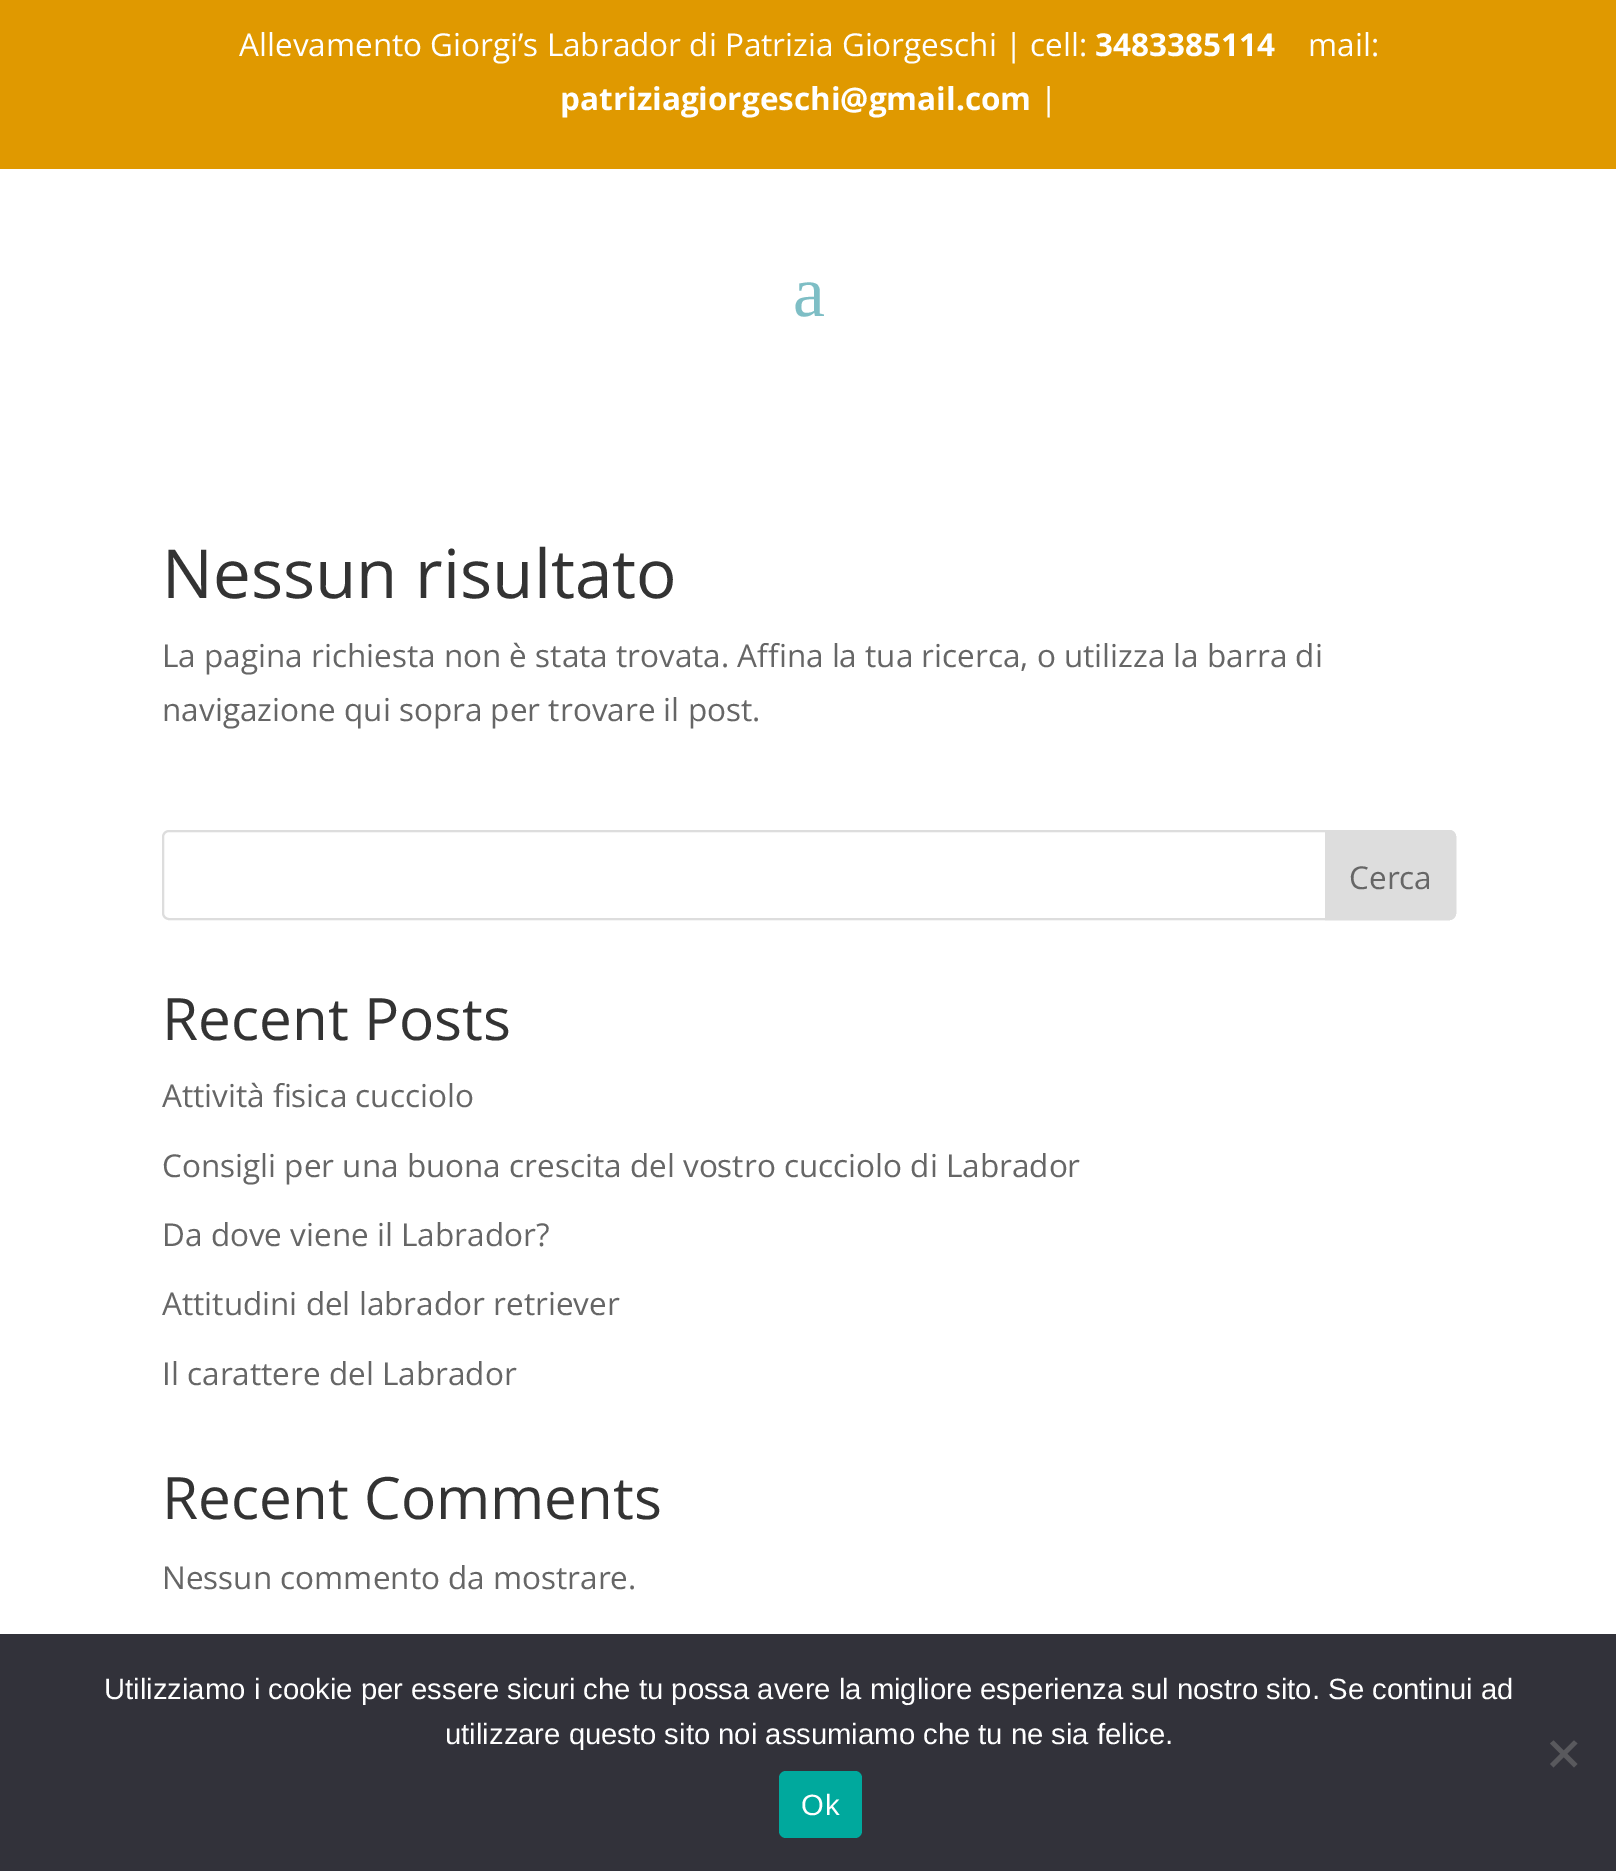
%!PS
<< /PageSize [1616 1871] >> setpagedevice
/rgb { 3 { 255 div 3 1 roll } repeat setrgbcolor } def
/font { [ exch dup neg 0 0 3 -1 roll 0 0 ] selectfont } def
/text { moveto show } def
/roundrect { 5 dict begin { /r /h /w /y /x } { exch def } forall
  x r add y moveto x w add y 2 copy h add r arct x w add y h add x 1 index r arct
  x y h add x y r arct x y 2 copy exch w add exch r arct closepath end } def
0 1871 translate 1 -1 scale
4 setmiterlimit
255 255 255 rgb
0 0 1616 1871 rectfill
224 153 0 rgb
0 0 1616 169 rectfill
221 221 221 rgb
2 setlinewidth
163 831 1292 88 6 roundrect stroke
1326 831 moveto 123 0 rlineto 3.5 0 6 2.5 6 6 rcurveto 0 76 rlineto 0 3.5 -2.5 6 -6 6 rcurveto -123 0 rlineto closepath gsave fill grestore
stroke
50 50 58 rgb
0 1634 1616 237 rectfill
89 89 93 rgb
1574 1740.5 moveto 3.5 3 rlineto -24 24 rlineto -3.5 -3.5 rlineto closepath fill
1550 1743.5 moveto 3.5 -3 rlineto 24 23.5 rlineto -3.5 3.5 rlineto closepath fill
0 169 157 rgb
779 1771 83 67 7 roundrect fill
/OpenSans-Regular 31.5 font
255 255 255 rgb
(Allevamento Giorgi’s Labrador di Patrizia Giorgeschi | cell:) 239 56 text
/OpenSans-Bold 31.5 font
(3483385114) 1095 56 text
/OpenSans-Regular 31.5 font
(mail:) 1308 56 text
/OpenSans-Bold 31.5 font
(patriziagiorgeschi@gmail.com) 560 110 text
/OpenSans-Regular 31.5 font
(|) 1040 110 text
/LiberationSerif-Regular 72 font
126 190 197 rgb
(a) 793 316 text
/OpenSans-Regular 67.5 font
51 51 51 rgb
(Nessun risultato) 162 598 text
/OpenSans-Regular 31.5 font
102 102 102 rgb
(La pagina richiesta non è stata trovata. Affina la tua ricerca, o utilizza la barra di) 162 667 text
(navigazione qui sopra per trovare il post.) 162 721 text
(Cerca) 1349 889 text
/OpenSans-Regular 58.5 font
51 51 51 rgb
(Recent Posts) 162 1040 text
/OpenSans-Regular 31.5 font
102 102 102 rgb
(Attività fisica cucciolo) 162 1107 text
(Consigli per una buona crescita del vostro cucciolo di Labrador) 162 1177 text
(Da dove viene il Labrador?) 162 1246 text
(Attitudini del labrador retriever) 162 1315 text
(Il carattere del Labrador) 162 1385 text
/OpenSans-Regular 58.5 font
51 51 51 rgb
(Recent Comments) 162 1519 text
/OpenSans-Regular 31.5 font
102 102 102 rgb
(Nessun commento da mostrare.) 162 1589 text
/LiberationSans-Regular 29.25 font
255 255 255 rgb
(Utilizziamo i cookie per essere sicuri che tu possa avere la migliore esperienza sul nostro sito. Se continui ad) 104 1699 text
(utilizzare questo sito noi assumiamo che tu ne sia felice.) 445 1744 text
801 1815 moveto 1 0 (Ok) ashow
showpage
